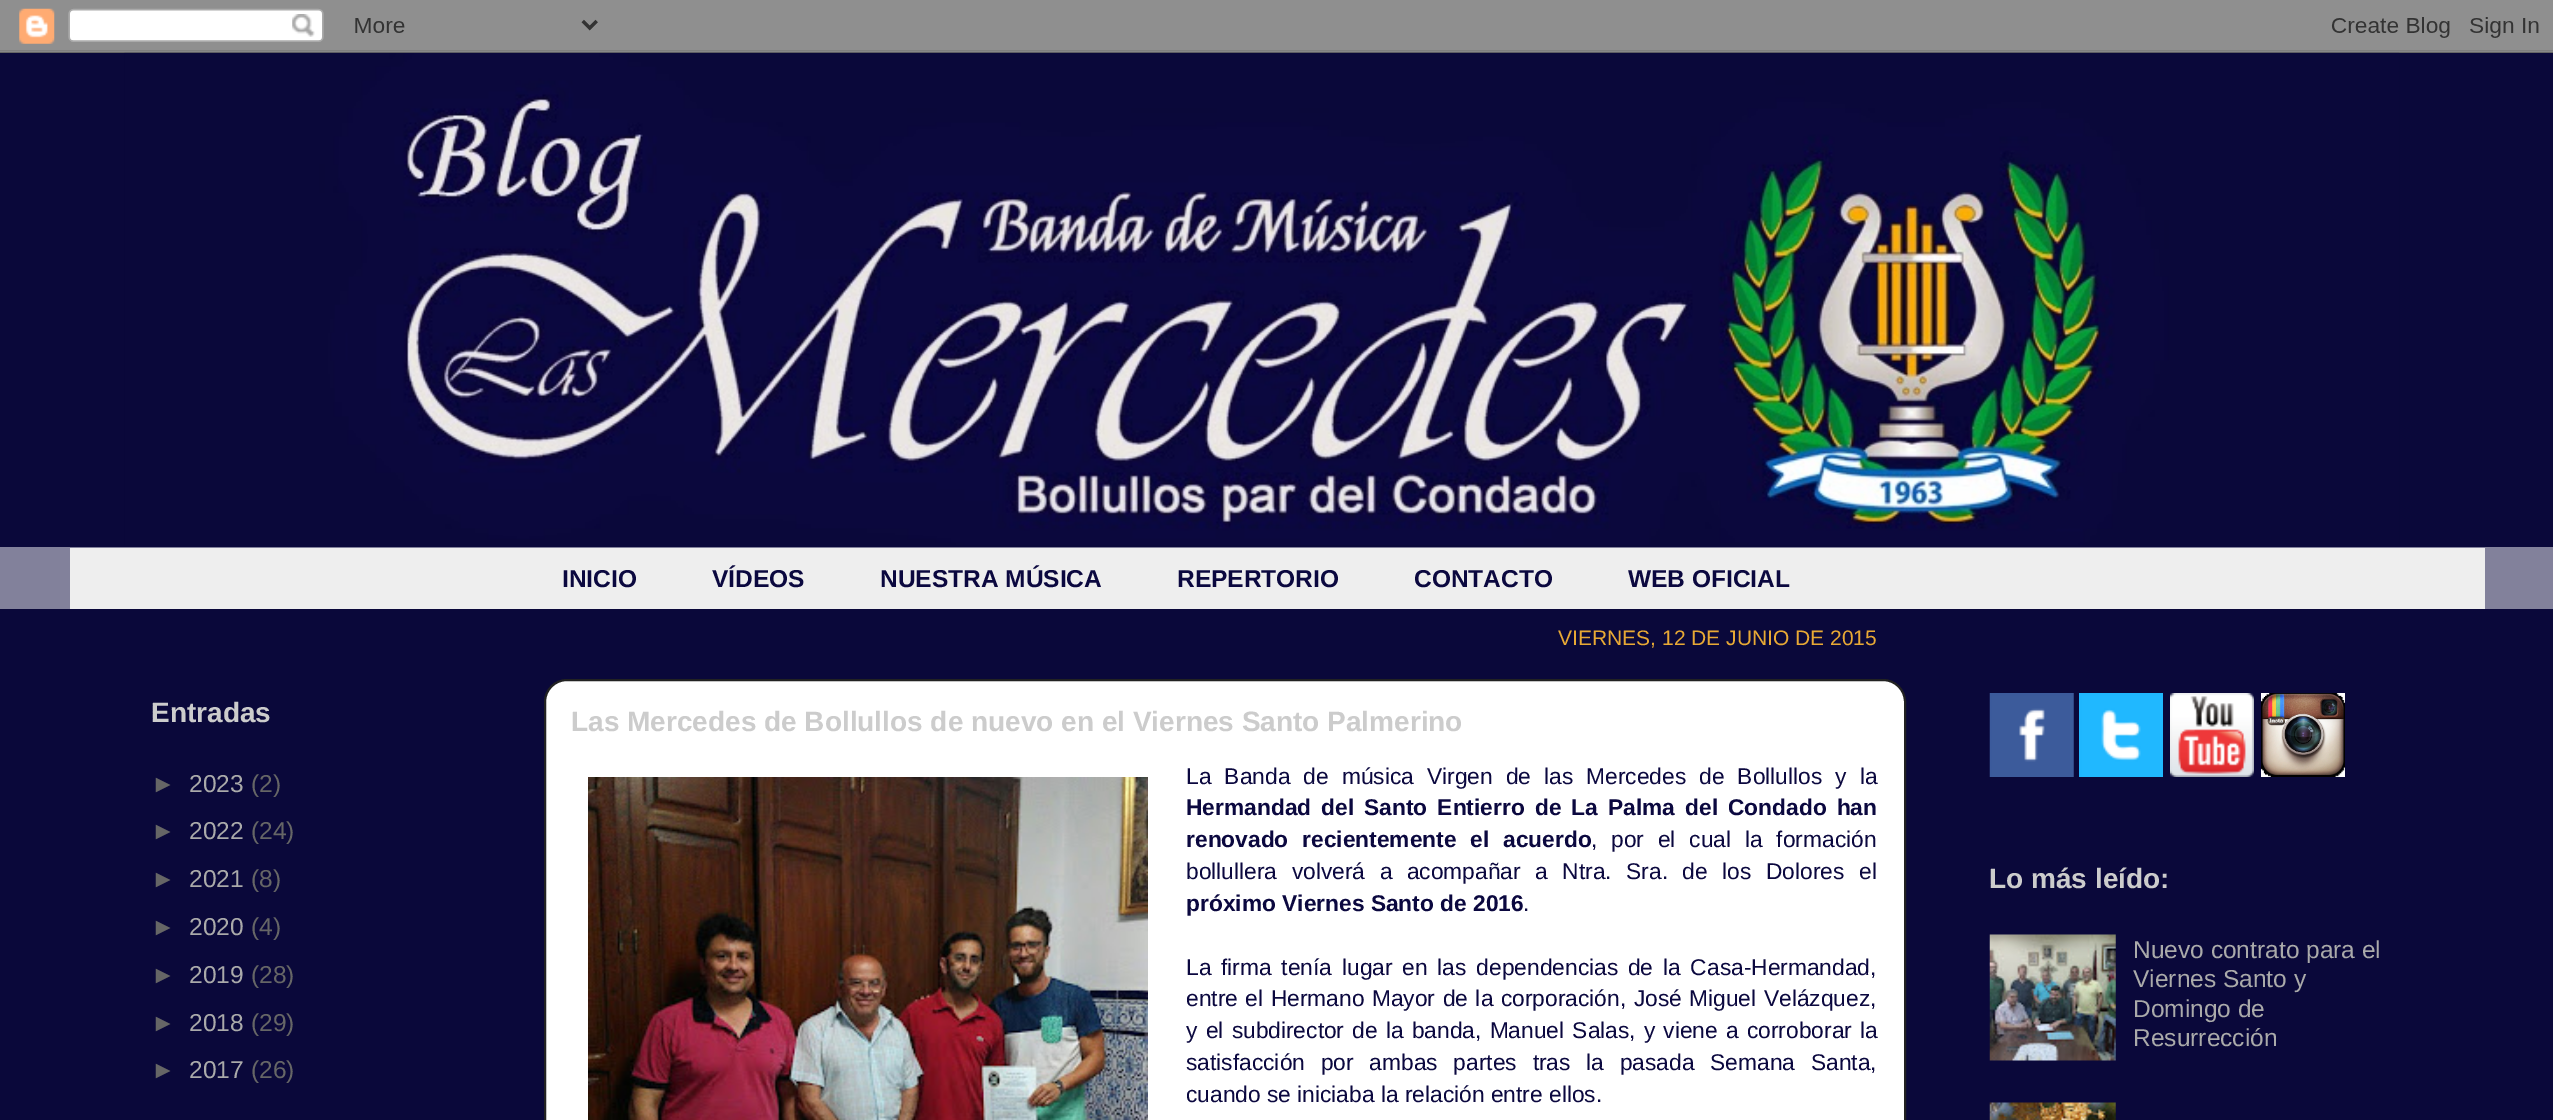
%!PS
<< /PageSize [2553 1120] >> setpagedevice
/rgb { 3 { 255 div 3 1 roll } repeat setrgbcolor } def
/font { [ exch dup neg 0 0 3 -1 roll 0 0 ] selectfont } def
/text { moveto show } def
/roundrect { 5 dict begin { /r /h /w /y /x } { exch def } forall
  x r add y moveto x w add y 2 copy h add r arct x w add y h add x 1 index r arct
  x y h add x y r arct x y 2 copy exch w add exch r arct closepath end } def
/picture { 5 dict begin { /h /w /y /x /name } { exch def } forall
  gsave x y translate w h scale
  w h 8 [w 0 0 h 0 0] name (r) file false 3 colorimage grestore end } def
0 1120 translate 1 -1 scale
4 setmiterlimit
68 68 68 rgb
0 0 2553 1120 rectfill
10 8 58 rgb
0 53 2553 1067 rectfill
(img_02.rgb) 124 52 2276 493 picture
(img_01.rgb) 0 0 2553 53 picture
130 129 155 rgb
0 547 2553 62 rectfill
238 238 238 rgb
70 548 2415 61 rectfill
255 255 255 rgb
545 680 1360 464 22 roundrect gsave fill grestore
34 34 34 rgb
2 setlinewidth
stroke
(img_03.rgb) 588 777 560 343 picture
(img_04.rgb) 1989 693 85 84 picture
(img_05.rgb) 2079 693 84 84 picture
(img_06.rgb) 2170 693 84 84 picture
(img_07.rgb) 2261 693 84 84 picture
(img_08.rgb) 1989 934 127 127 picture
(img_09.rgb) 1989 1102 127 18 picture
/LiberationSans-Bold 24.5 font
11 8 63 rgb
(INICIO) 562 587 text
(VÍDEOS) 712 587 text
(NUESTRA MÚSICA) 880 587 text
(REPERTORIO) 1177 587 text
(CONTACTO) 1414 587 text
(WEB OFICIAL) 1628 587 text
/LiberationSans-Bold 28 font
204 204 204 rgb
(Entradas) 151 722 text
/LiberationSans-Regular 24.5 font
102 102 102 rgb
(►) 151 792 text
170 170 170 rgb
(2023) 189 792 text
102 102 102 rgb
(\(2\)) 251 792 text
(►) 151 839 text
170 170 170 rgb
(2022) 189 839 text
102 102 102 rgb
(\(24\)) 251 839 text
(►) 151 887 text
170 170 170 rgb
(2021) 189 887 text
102 102 102 rgb
(\(8\)) 251 887 text
(►) 151 935 text
170 170 170 rgb
(2020) 189 935 text
102 102 102 rgb
(\(4\)) 251 935 text
(►) 151 983 text
170 170 170 rgb
(2019) 189 983 text
102 102 102 rgb
(\(28\)) 251 983 text
(►) 151 1031 text
170 170 170 rgb
(2018) 189 1031 text
102 102 102 rgb
(\(29\)) 251 1031 text
(►) 151 1078 text
170 170 170 rgb
(2017) 189 1078 text
102 102 102 rgb
(\(26\)) 251 1078 text
/LiberationSans-Regular 21 font
232 169 53 rgb
(VIERNES, 12 DE JUNIO DE 2015) 1558 645 text
/LiberationSans-Bold 28 font
204 204 204 rgb
(Las Mercedes de Bollullos de nuevo en el Viernes Santo Palmerino) 571 731 text
/LiberationSans-Regular 22.75 font
11 8 63 rgb
1186 784 moveto 6.75 0 32 (La Banda de música Virgen de las Mercedes de Bollullos y la) widthshow
/LiberationSans-Bold 22.75 font
1186 815 moveto 3.75 0 32 (Hermandad del Santo Entierro de La Palma del Condado han) widthshow
1186 847 moveto 7.5 0 32 (renovado recientemente el acuerdo) widthshow
/LiberationSans-Regular 22.75 font
1591 847 moveto 7.5 0 32 (, por el cual la formación) widthshow
1186 879 moveto 8.25 0 32 (bollullera volverá a acompañar a Ntra. Sra. de los Dolores el) widthshow
/LiberationSans-Bold 22.75 font
(próximo Viernes Santo de 2016) 1186 911 text
/LiberationSans-Regular 22.75 font
(.) 1523 911 text
1186 975 moveto 3.5 0 32 (La firma tenía lugar en las dependencias de la Casa-Hermandad,) widthshow
1186 1006 moveto 1.25 0 32 (entre el Hermano Mayor de la corporación, José Miguel Velázquez,) widthshow
1186 1038 moveto 1.9 0 32 (y el subdirector de la banda, Manuel Salas, y viene a corroborar la) widthshow
1186 1070 moveto 9.5 0 32 (satisfacción por ambas partes tras la pasada Semana Santa,) widthshow
(cuando se iniciaba la relación entre ellos.) 1186 1102 text
/LiberationSans-Bold 28 font
204 204 204 rgb
(Lo más leído:) 1989 888 text
/LiberationSans-Regular 24.5 font
170 170 170 rgb
(Nuevo contrato para el) 2133 958 text
(Viernes Santo y) 2133 987 text
(Domingo de) 2133 1017 text
(Resurrección) 2133 1046 text
showpage
